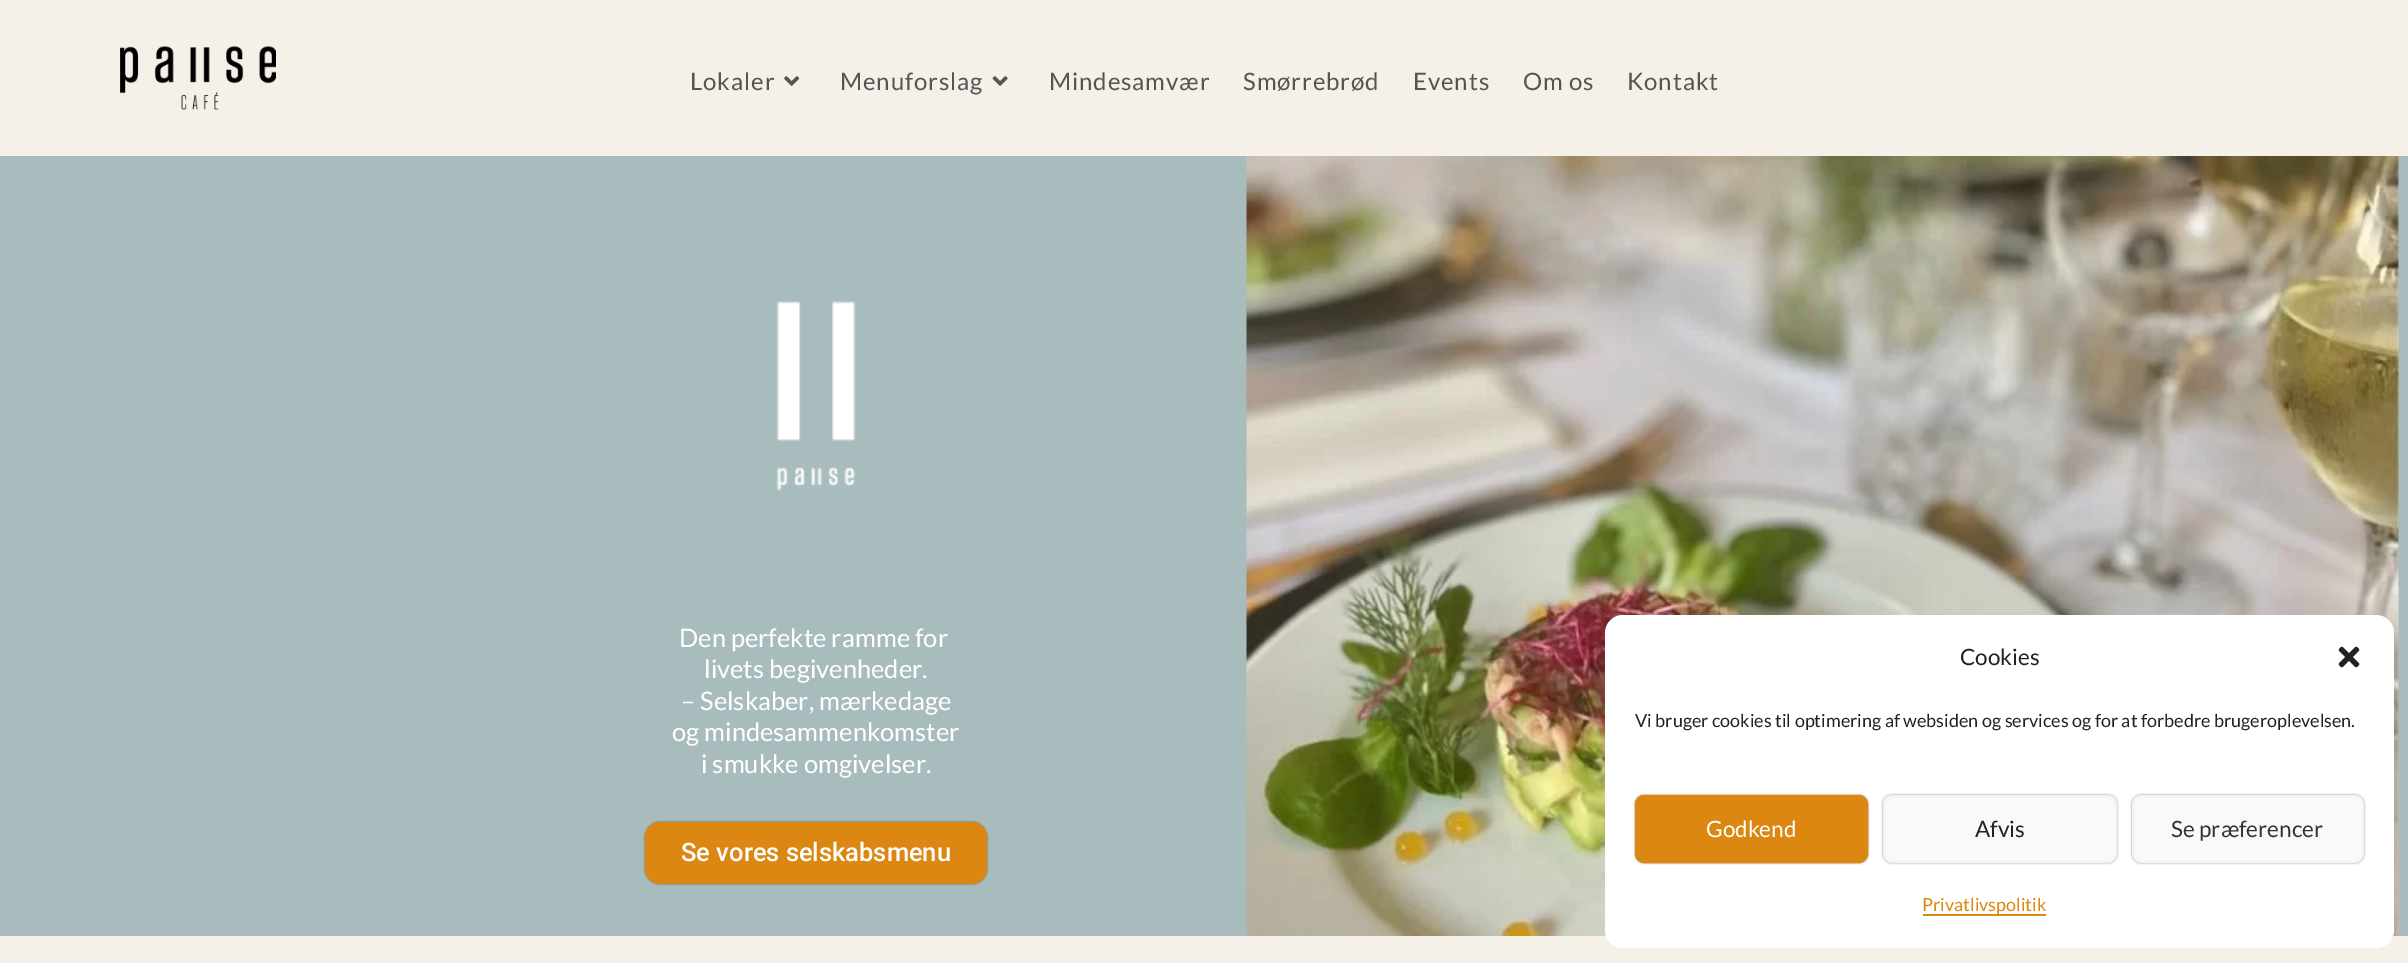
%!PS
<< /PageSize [2408 963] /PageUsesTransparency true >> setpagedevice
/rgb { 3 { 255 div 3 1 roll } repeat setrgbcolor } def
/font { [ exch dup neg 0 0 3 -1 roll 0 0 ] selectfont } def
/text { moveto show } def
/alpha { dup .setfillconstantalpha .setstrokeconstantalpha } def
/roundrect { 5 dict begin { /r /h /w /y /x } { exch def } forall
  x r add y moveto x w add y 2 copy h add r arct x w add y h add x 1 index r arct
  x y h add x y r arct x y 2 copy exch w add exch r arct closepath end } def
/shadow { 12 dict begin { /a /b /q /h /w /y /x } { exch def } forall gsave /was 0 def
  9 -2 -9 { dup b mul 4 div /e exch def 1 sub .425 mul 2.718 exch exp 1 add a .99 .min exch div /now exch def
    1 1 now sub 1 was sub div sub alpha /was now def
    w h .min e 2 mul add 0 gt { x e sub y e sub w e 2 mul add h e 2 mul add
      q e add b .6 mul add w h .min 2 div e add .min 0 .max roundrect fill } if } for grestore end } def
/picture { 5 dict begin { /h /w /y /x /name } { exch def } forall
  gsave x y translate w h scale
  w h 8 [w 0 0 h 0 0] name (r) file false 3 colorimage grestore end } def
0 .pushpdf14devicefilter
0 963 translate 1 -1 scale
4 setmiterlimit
245 241 233 rgb
0 0 2408 963 rectfill
(img_01.rgb) 120 46 156 64 picture
(img_02.rgb) 784 76 16 10 picture
(img_03.rgb) 992 76 16 10 picture
169 188 189 rgb
0 156 2408 780 rectfill
(img_04.rgb) 776 301 80 190 picture
0 0 0 rgb
645 822 342 62 15 1 0.5 shadow
220 135 18 rgb
645 822 342 62 15 roundrect fill
(img_05.rgb) 1246 156 1153 780 picture
255 255 255 rgb
1605 615 789 333 18 roundrect fill
(img_06.rgb) 2338 646 22 22 picture
0 0 0 rgb
1635 795 233 68 9 1 0.5 shadow
220 135 18 rgb
1636 796 231 66 8 roundrect gsave fill grestore
2 setlinewidth
stroke
0 0 0 rgb
1883 795 234 68 9 1 0.5 shadow
249 249 249 rgb
1884 796 232 66 8 roundrect gsave fill grestore
242 242 242 rgb
stroke
0 0 0 rgb
2132 795 232 68 9 1 0.5 shadow
249 249 249 rgb
2133 796 230 66 8 roundrect gsave fill grestore
242 242 242 rgb
stroke
220 135 18 rgb
1923 914 123 2 rectfill
/Lato-Regular 24 font
85 85 85 rgb
690 90 moveto 0.9 0 (Lokaler) ashow
840 90 moveto 0.9 0 (Menuforslag) ashow
1049 90 moveto 0.9 0 (Mindesamvær) ashow
1243 90 moveto 0.9 0 (Smørrebrød) ashow
1413 90 moveto 0.9 0 (Events) ashow
1523 90 moveto 0.9 0 (Om os) ashow
1627 90 moveto 0.9 0 (Kontakt) ashow
/Lato-Regular 25.5 font
255 255 255 rgb
(Den perfekte ramme for) 679 647 text
(livets begivenheder.) 704 678 text
(– Selskaber, mærkedage) 681 710 text
(og mindesammenkomster) 672 741 text
(i smukke omgivelser.) 701 773 text
/Roboto-Medium 25.5 font
(Se vores selskabsmenu) 681 861 text
/Lato-Regular 22.5 font
34 34 34 rgb
(Cookies) 1960 665 text
/Lato-Regular 18 font
(Vi bruger cookies til optimering af websiden og services og for at forbedre brugeroplevelsen.) 1635 727 text
/Lato-Regular 22.5 font
255 255 255 rgb
(Godkend) 1706 837 text
34 34 34 rgb
(Afvis) 1975 837 text
51 51 51 rgb
(Se præferencer) 2171 837 text
/Lato-Regular 18 font
220 135 18 rgb
(Privatlivspolitik) 1922 911 text
.poppdf14devicefilter showpage
